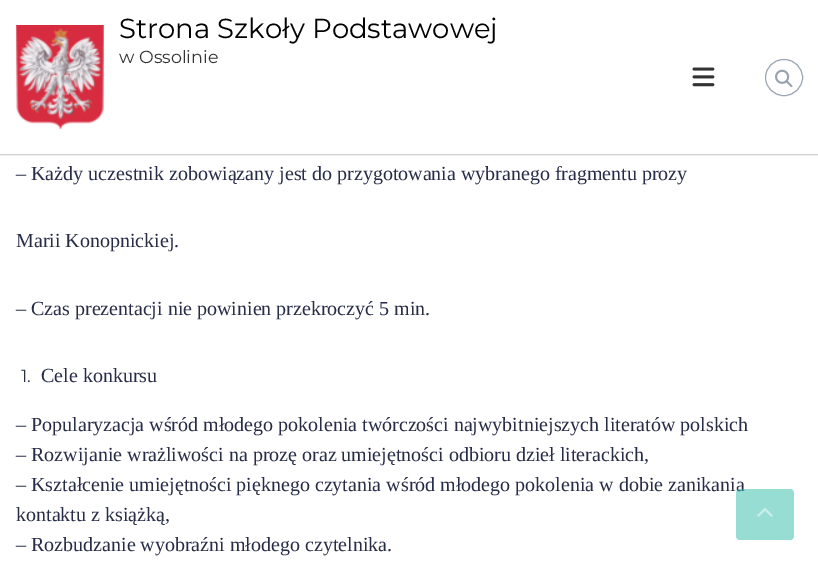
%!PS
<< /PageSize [818 565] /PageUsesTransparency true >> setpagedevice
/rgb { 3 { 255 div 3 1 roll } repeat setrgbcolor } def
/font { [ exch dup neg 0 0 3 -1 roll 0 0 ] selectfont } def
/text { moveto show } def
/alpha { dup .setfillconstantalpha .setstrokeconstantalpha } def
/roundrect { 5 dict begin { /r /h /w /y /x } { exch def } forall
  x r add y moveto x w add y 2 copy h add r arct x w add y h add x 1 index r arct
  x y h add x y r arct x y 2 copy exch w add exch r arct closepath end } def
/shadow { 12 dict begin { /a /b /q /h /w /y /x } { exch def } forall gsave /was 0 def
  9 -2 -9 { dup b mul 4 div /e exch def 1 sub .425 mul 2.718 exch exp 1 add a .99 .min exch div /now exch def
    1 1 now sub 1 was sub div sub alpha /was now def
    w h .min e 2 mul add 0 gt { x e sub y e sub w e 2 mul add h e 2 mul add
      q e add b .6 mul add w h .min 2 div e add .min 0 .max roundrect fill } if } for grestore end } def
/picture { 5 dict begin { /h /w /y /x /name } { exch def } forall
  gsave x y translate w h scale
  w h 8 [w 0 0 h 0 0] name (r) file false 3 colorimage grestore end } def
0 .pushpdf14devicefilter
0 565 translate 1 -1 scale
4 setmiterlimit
255 255 255 rgb
0 0 818 565 rectfill
0 0 0 rgb
0 1 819 154 0 0.5 0.2 shadow
255 255 255 rgb
0 0 818 154 rectfill
(img_01.rgb) 16 25 88 104 picture
(img_02.rgb) 692 67 23 20 picture
156 166 178 rgb
765.5 59.5 37 36 18 roundrect stroke
(img_03.rgb) 775 69 18 19 picture
/Montserrat-Regular 27.5 font
0 0 0 rgb
(Strona Szkoły Podstawowej) 119 38 text
/Montserrat-Regular 17.5 font
51 51 51 rgb
(w Ossolinie) 119 63 text
/LiberationSerif-Regular 20 font
39 44 71 rgb
(– Każdy uczestnik zobowiązany jest do przygotowania wybranego fragmentu prozy) 16 180 text
(Marii Konopnickiej.) 16 247 text
(– Czas prezentacji nie powinien przekroczyć 5 min.) 16 315 text
/Montserrat-Regular 17.5 font
(1.) 21 382 text
/LiberationSerif-Regular 20 font
(Cele konkursu) 41 382 text
(– Popularyzacja wśród młodego pokolenia twórczości najwybitniejszych literatów polskich) 16 431 text
(– Rozwijanie wrażliwości na prozę oraz umiejętności odbioru dzieł literackich,) 16 461 text
(– Kształcenie umiejętności pięknego czytania wśród młodego pokolenia w dobie zanikania) 16 491 text
(kontaktu z książką,) 16 521 text
(– Rozbudzanie wyobraźni młodego czytelnika.) 16 551 text
0.5 alpha
49 188 170 rgb
736 489 58 51 4 roundrect fill
1 alpha
(img_04.rgb) 757 508 16 9 picture
.poppdf14devicefilter showpage
